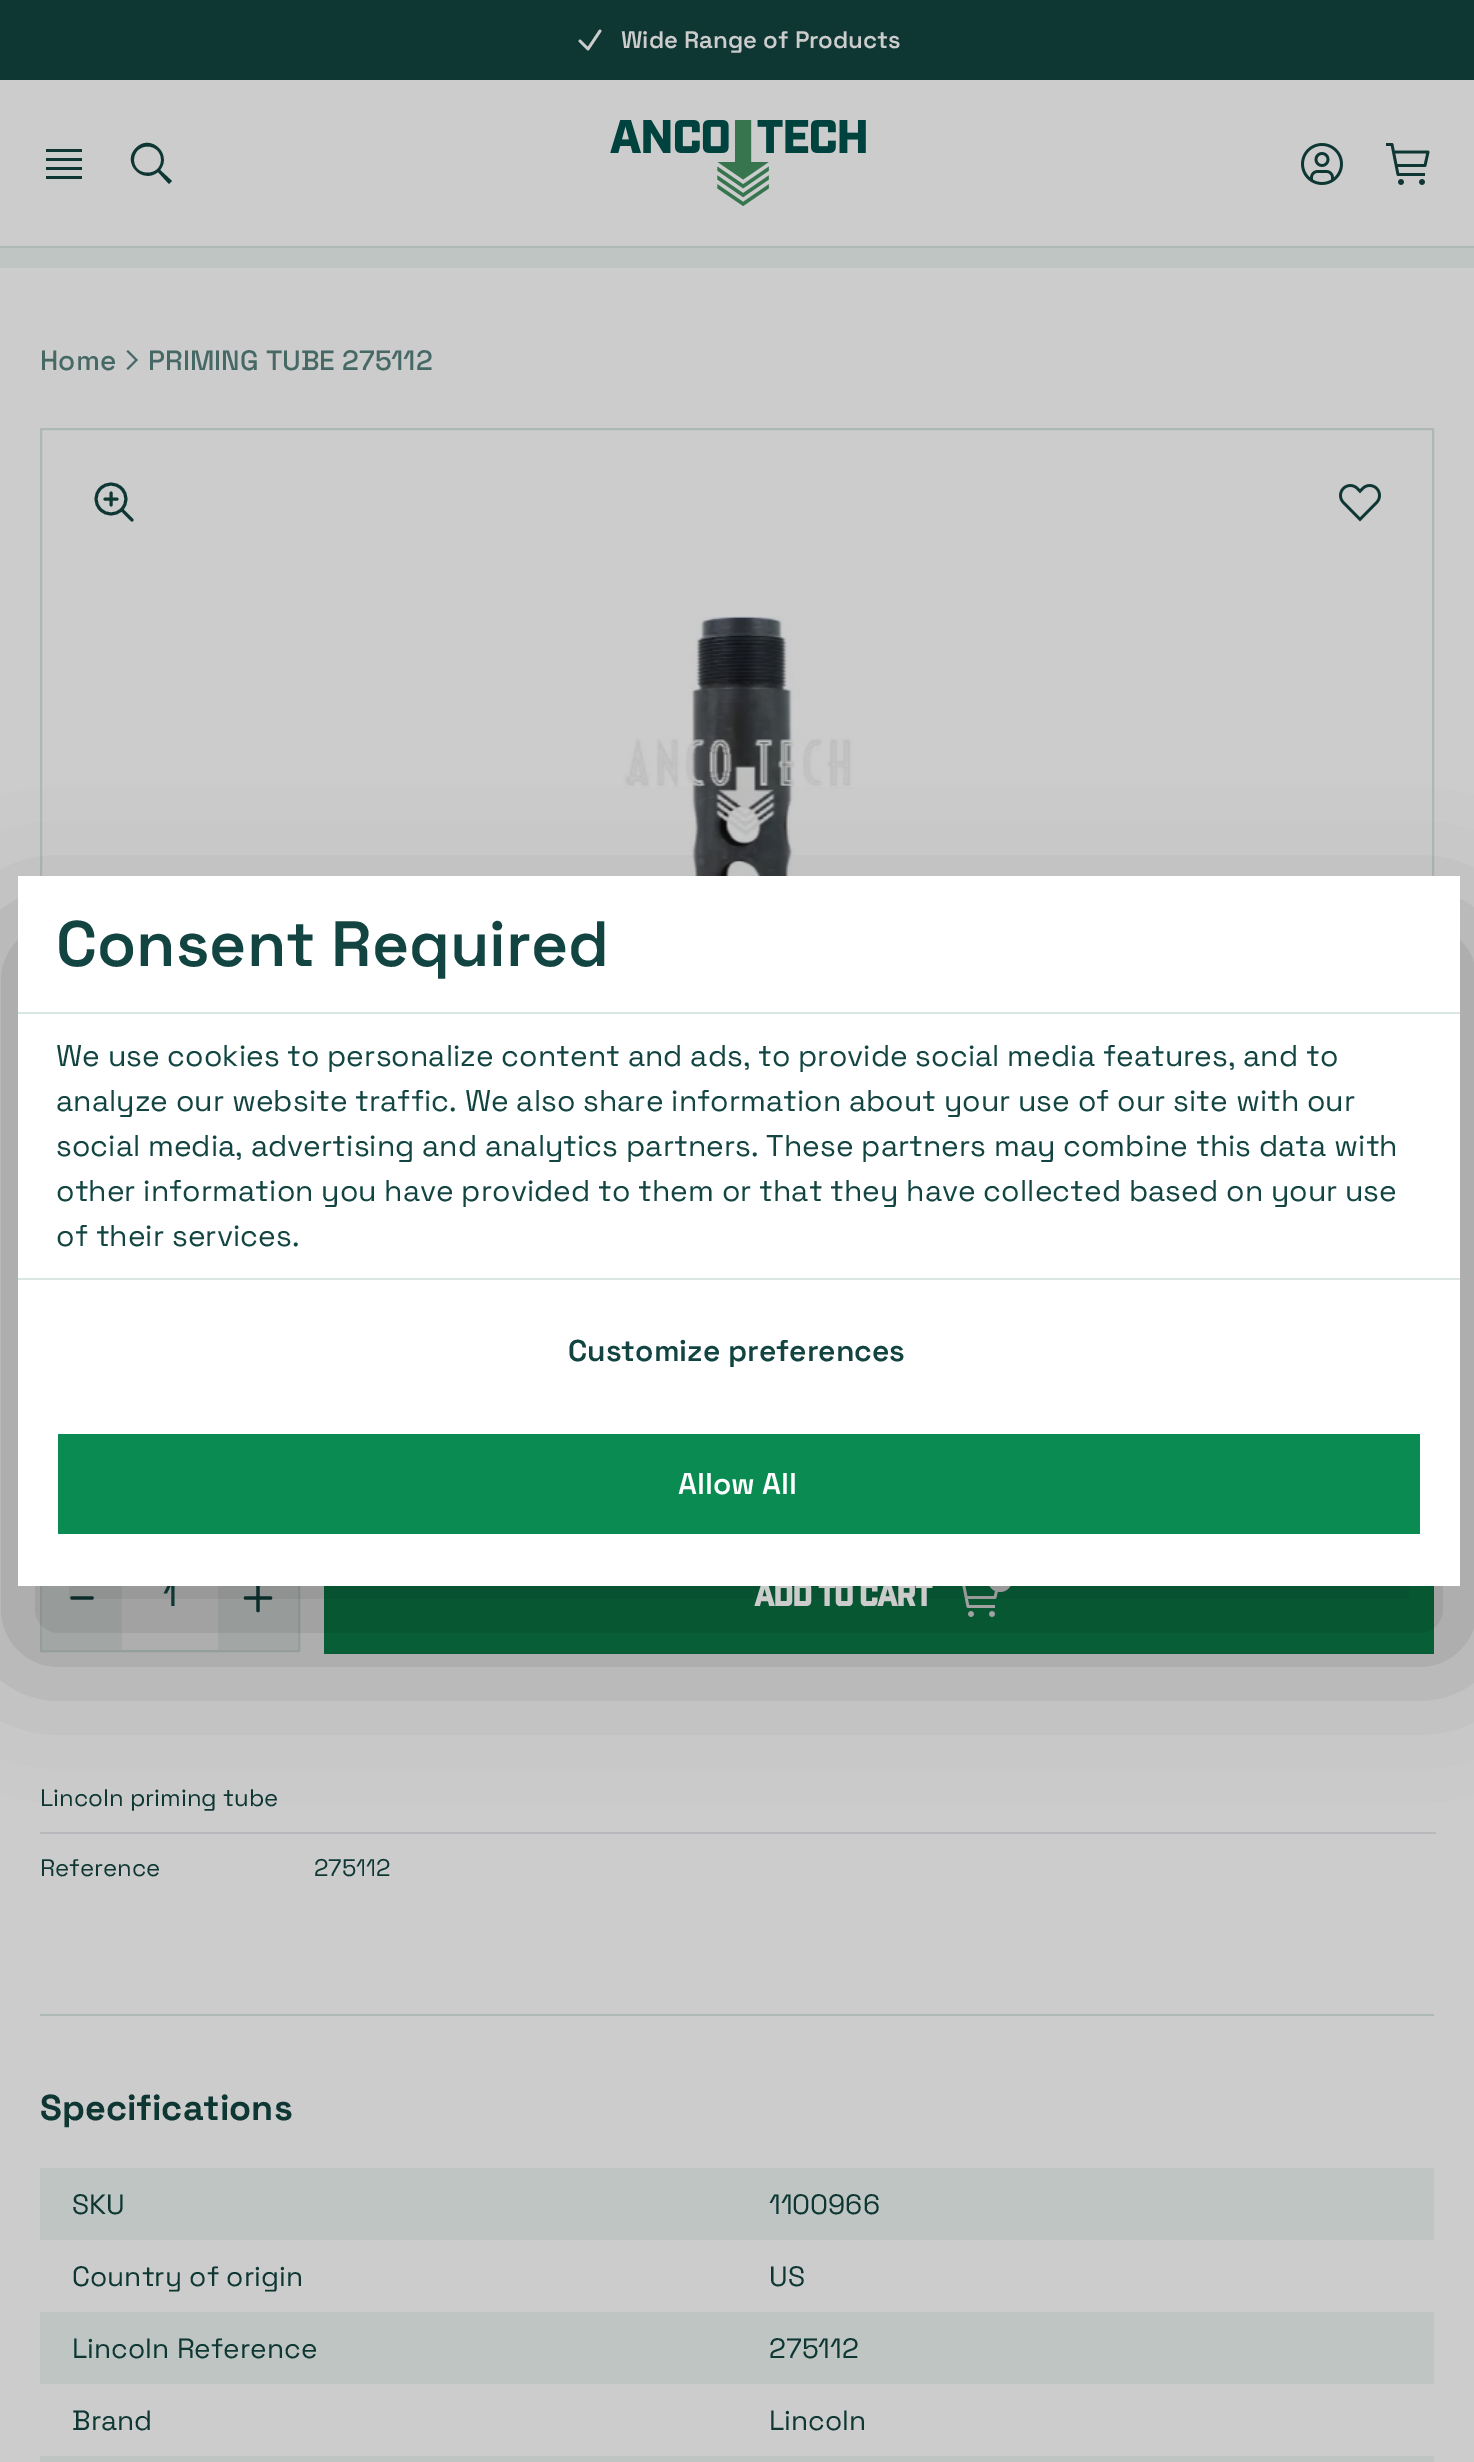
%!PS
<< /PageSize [1474 2462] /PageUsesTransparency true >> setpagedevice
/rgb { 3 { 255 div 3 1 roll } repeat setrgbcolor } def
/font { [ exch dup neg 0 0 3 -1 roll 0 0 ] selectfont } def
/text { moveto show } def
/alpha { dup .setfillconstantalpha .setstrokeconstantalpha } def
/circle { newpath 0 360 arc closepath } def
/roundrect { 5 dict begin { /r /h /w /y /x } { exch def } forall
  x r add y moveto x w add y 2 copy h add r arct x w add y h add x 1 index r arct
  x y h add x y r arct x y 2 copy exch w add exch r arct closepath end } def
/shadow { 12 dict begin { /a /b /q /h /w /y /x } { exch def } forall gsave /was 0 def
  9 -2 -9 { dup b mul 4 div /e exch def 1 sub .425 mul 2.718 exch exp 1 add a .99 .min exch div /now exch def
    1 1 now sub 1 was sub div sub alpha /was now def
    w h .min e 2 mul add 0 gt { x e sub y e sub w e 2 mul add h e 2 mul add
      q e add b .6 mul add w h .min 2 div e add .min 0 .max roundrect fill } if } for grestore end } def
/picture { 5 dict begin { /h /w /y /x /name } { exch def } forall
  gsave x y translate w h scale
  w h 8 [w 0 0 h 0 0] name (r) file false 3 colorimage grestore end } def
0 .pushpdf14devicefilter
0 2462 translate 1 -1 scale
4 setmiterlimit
204 204 204 rgb
0 0 1474 2462 rectfill
190 197 194 rgb
0 248 1474 20 rectfill
14 55 52 rgb
0 0 1474 80 rectfill
204 204 204 rgb
2.7 setlinewidth
1 setlinecap
1 setlinejoin
580 41 moveto 8 8 rlineto 12 -18 rlineto stroke
174 184 180 rgb
0 246 1474 2 rectfill
14 55 52 rgb
46 149 36 3 rectfill
46 176 36 3 rectfill
46 158 36 3 rectfill
46 167 36 3 rectfill
172 181 moveto -12 -11 rlineto 13 -16 -10 -37 -24 -22 rcurveto -15 14 6 37 22 24 rcurveto 11 12 rlineto closepath 134 160 moveto 0 -18 27 -18 27 0 rcurveto 0 17 -27 17 -27 0 rcurveto closepath fill
(img_01.rgb) 610 120 256 86 picture
(img_02.rgb) 1301 143 42 42 picture
(img_03.rgb) 1386 143 44 42 picture
71 105 102 rgb
138 360 moveto -10 10 rlineto -1.5 -1.5 rlineto 8.5 -8.5 rlineto -8.5 -8.5 rlineto 1.5 -1.5 rlineto closepath fill
174 184 180 rgb
2 setlinewidth
0 setlinecap
0 setlinejoin
41 429 1392 702 rectstroke
14 55 52 rgb
3 setlinewidth
1 setlinecap
1 setlinejoin
132 520 moveto -10.5 -10.5 rlineto 121.5 509.5 moveto 6 -6 6 -15 0 -21 rcurveto -6 -6 -15 -6 -21 0 rcurveto -6 6 -6 15 0 21 rcurveto 6 6 15 6 21 0 rcurveto closepath 111 493 moveto 0 12 rlineto 117 499 moveto -12 0 rlineto stroke
(img_04.rgb) 1339 484 42 38 picture
(img_05.rgb) 388 615 700 261 picture
174 184 180 rgb
2 setlinewidth
0 setlinecap
0 setlinejoin
41 1541 258 110 rectstroke
190 197 194 rgb
42 1586 80 64 rectfill
14 55 52 rgb
3.3 setlinewidth
1 setlinecap
1 setlinejoin
92 1598 moveto -20 0 rlineto stroke
190 197 194 rgb
218 1586 80 64 rectfill
14 55 52 rgb
258 1585.5 moveto 0 25 rlineto 270.5 1598 moveto -25 0 rlineto stroke
7 111 65 rgb
324 1586 1110 68 rectfill
(img_06.rgb) 962 1586 36 31 picture
204 204 204 rgb
1000 1580 12 circle fill
183 185 188 rgb
40 1832 1396 2 rectfill
174 184 180 rgb
40 2014 1394 2 rectfill
190 197 194 rgb
40 2168 1394 72 rectfill
40 2312 1394 72 rectfill
40 2456 1394 6 rectfill
0 0 0 rgb
18 940 1442 710 0 68 0.3 shadow
/SpaceGrotesk-SemiBold 24 font
204 204 204 rgb
(Wide Range of Products) 621 48 text
/SpaceGrotesk-Light 28 font
71 105 102 rgb
(Home) 40 370 text
(PRIMING TUBE 275112) 148 370 text
/SpaceGrotesk-Light 32 font
14 55 52 rgb
(1) 163 1606 text
/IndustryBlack-Black 32 font
204 204 204 rgb
754 1606 moveto -2 0 (ADD TO CART) ashow
/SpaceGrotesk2-Light 24 font
14 55 52 rgb
(Lincoln priming tube) 40 1806 text
(Reference) 40 1876 text
(275112) 314 1876 text
/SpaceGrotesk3-Light 36 font
(Specifications) 40 2120 text
/SpaceGrotesk2-Light 28 font
(SKU) 72 2214 text
(1100966) 769 2214 text
(Country of origin) 72 2286 text
(US) 769 2286 text
(Lincoln Reference) 72 2358 text
(275112) 769 2358 text
(Brand) 72 2430 text
(Lincoln) 769 2430 text
255 255 255 rgb
18 876 1442 710 rectfill
217 230 225 rgb
18 1012 1442 2 rectfill
/SpaceGrotesk-SemiBold 64 font
18 69 65 rgb
(Consent Required) 56 966 text
/SpaceGrotesk2-Light 30 font
(We use cookies to personalize content and ads, to provide social media features, and to) 56 1066 text
(analyze our website traffic. We also share information about your use of our site with our) 56 1111 text
(social media, advertising and analytics partners. These partners may combine this data with) 56 1156 text
(other information you have provided to them or that they have collected based on your use) 56 1201 text
(of their services.) 56 1246 text
217 230 225 rgb
18 1278 1442 2 rectfill
/SpaceGrotesk-SemiBold 30 font
18 69 65 rgb
(Customize preferences) 568 1361 text
9 139 81 rgb
58 1434 1362 100 rectfill
255 255 255 rgb
(Allow All) 678 1494 text
.poppdf14devicefilter showpage
